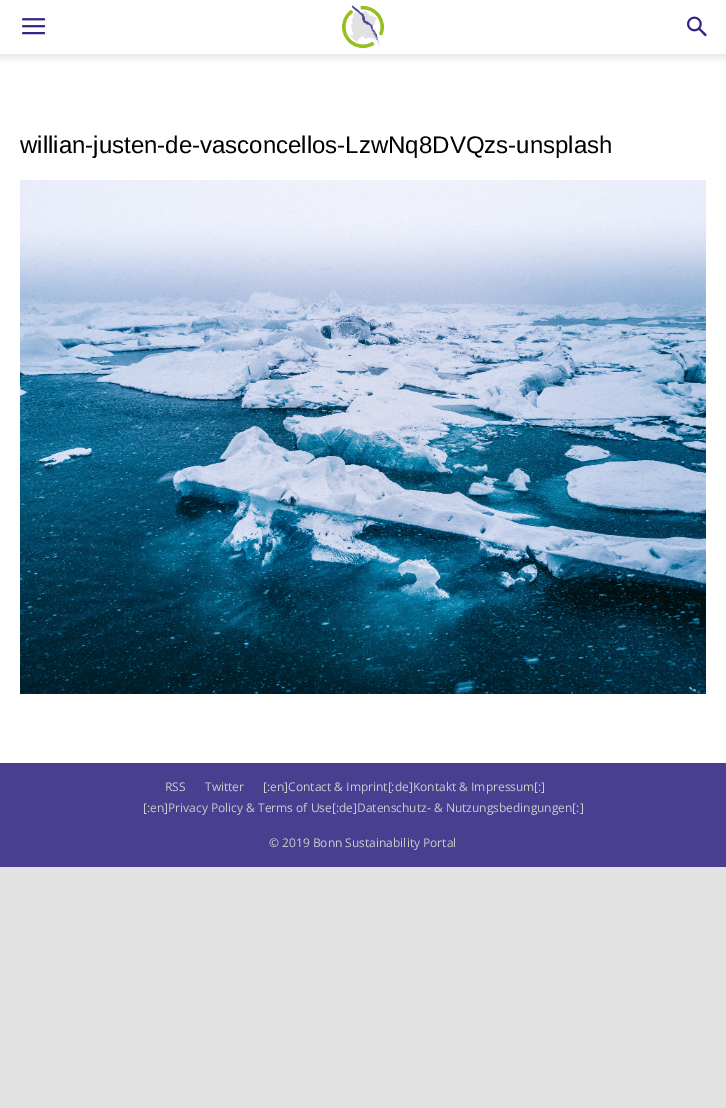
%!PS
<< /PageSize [726 1108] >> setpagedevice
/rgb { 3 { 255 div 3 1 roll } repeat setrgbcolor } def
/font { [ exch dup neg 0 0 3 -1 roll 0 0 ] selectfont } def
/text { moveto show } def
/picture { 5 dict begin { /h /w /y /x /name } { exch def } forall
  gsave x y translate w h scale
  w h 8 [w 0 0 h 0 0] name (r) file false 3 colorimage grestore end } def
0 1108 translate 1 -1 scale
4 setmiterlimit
226 226 226 rgb
0 0 726 1108 rectfill
255 255 255 rgb
0 0 726 763 rectfill
(img_01.rgb) 22 18 24 17 picture
(img_02.rgb) 341 5 44 44 picture
(img_03.rgb) 687 16 20 21 picture
(img_04.rgb) 0 54 726 9 picture
(img_05.rgb) 20 180 686 514 picture
72 63 145 rgb
0 763 726 104 rectfill
/LiberationSans-Regular 24 font
0 0 0 rgb
(willian-justen-de-vasconcellos-LzwNq8DVQzs-unsplash) 20 153 text
/OpenSans-Regular 12 font
204 204 204 rgb
(RSS) 165 791 text
(Twitter) 205 791 text
([:en]Contact & Imprint[:de]Kontakt & Impressum[:]) 263 791 text
([:en]Privacy Policy & Terms of Use[:de]Datenschutz- & Nutzungsbedingungen[:]) 143 812 text
(© 2019 Bonn Sustainability Portal) 269 847 text
showpage
